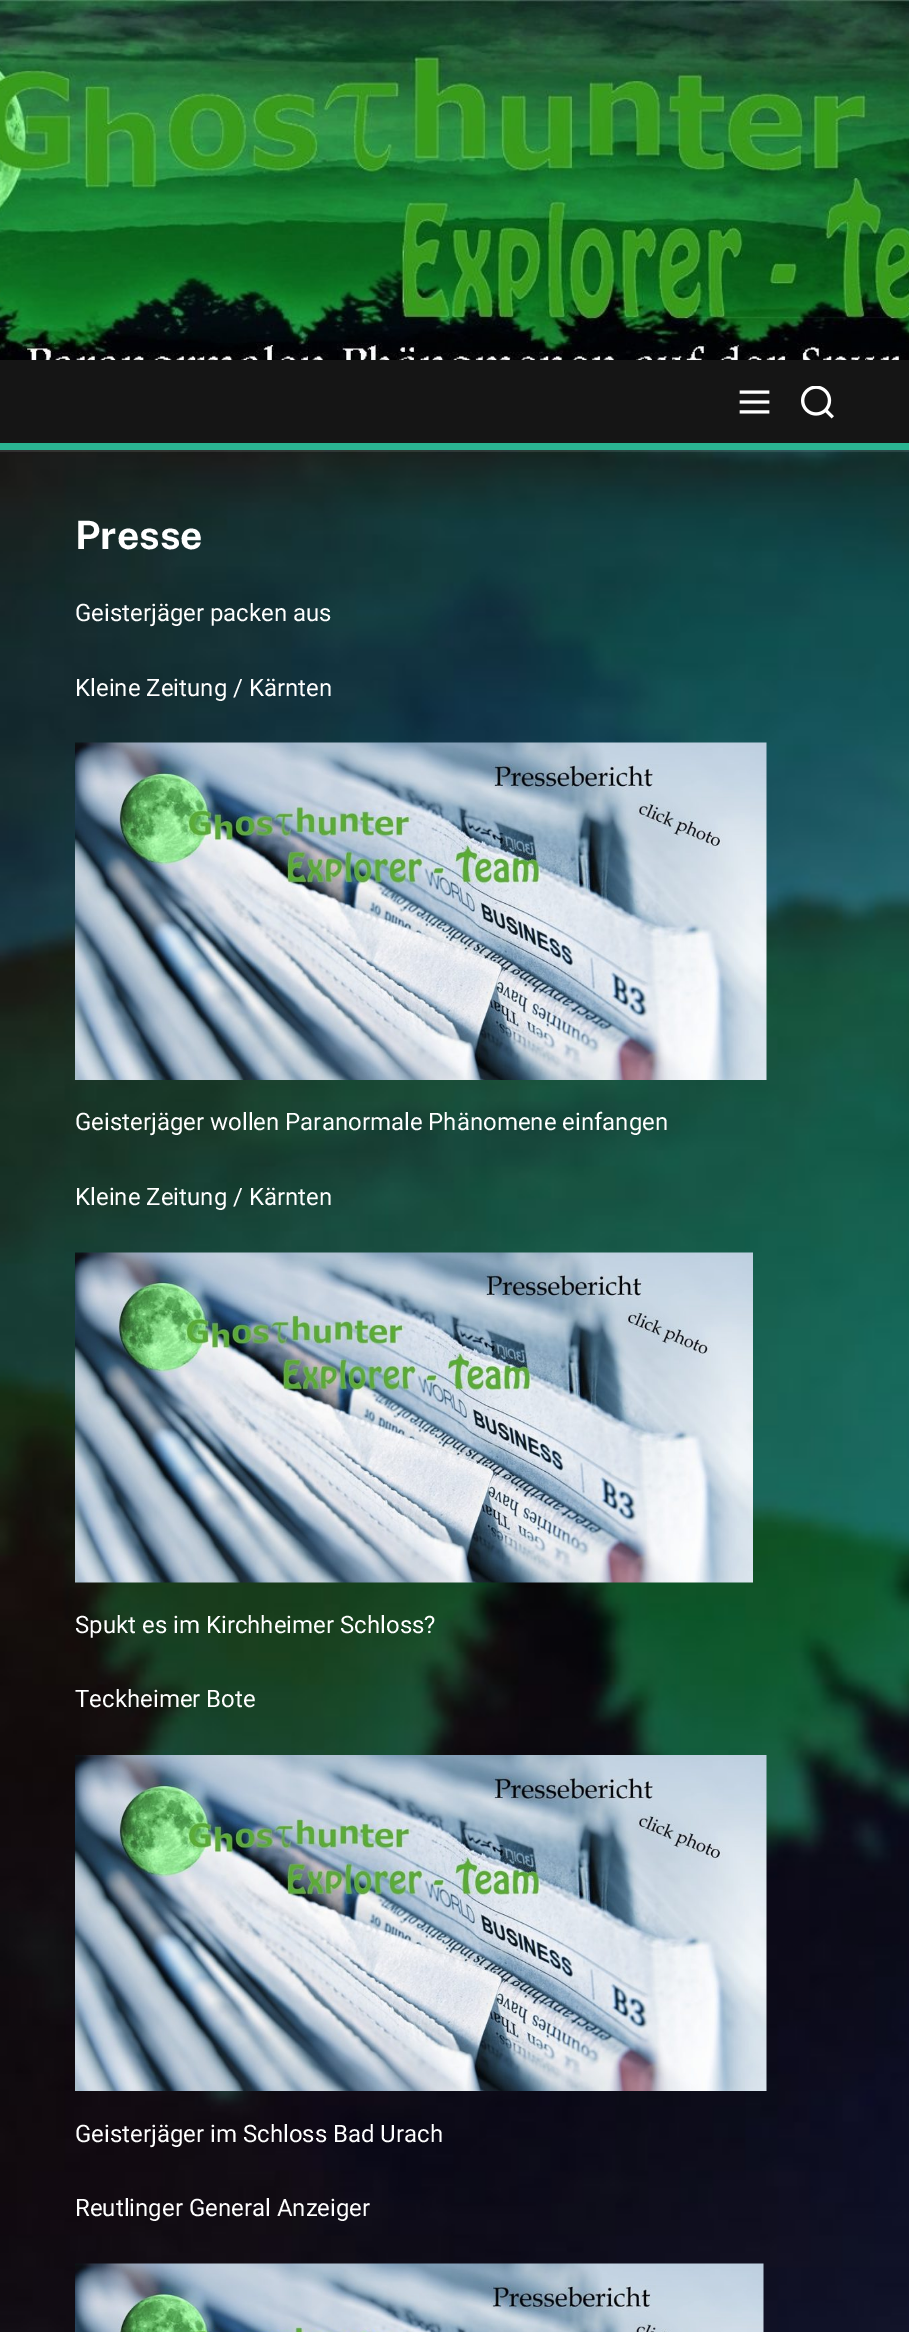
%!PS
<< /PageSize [909 2332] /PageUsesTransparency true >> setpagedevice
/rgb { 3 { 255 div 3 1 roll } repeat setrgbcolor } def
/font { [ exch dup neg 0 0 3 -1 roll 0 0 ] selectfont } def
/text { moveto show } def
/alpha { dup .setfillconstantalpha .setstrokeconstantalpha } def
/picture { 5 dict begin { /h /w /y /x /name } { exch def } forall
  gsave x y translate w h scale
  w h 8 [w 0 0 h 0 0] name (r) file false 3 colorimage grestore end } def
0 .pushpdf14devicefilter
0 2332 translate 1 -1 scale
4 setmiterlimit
255 255 255 rgb
0 0 909 2332 rectfill
(img_01.rgb) 0 450 909 1882 picture
(img_02.rgb) 0 0 909 360 picture
21 21 21 rgb
0 360 909 83 rectfill
42 179 145 rgb
0 443 909 7 rectfill
(img_03.rgb) 739 390 31 24 picture
(img_04.rgb) 801 386 33 33 picture
0.1 alpha
255 255 255 rgb
0 450 909 2 rectfill
1 alpha
(img_05.rgb) 75 742 692 338 picture
(img_06.rgb) 75 1252 678 331 picture
(img_07.rgb) 75 1755 692 336 picture
(img_08.rgb) 75 2263 689 69 picture
/PublicSans-Bold 39 font
(Presse) 75 549 text
/Roboto-Regular 24 font
(Geisterjäger packen aus) 75 621 text
(Kleine Zeitung / Kärnten) 75 696 text
(Geisterjäger wollen Paranormale Phänomene einfangen) 75 1130 text
(Kleine Zeitung / Kärnten) 75 1205 text
(Spukt es im Kirchheimer Schloss?) 75 1633 text
(Teckheimer Bote) 75 1707 text
(Geisterjäger im Schloss Bad Urach) 75 2142 text
(Reutlinger General Anzeiger) 75 2216 text
.poppdf14devicefilter showpage
